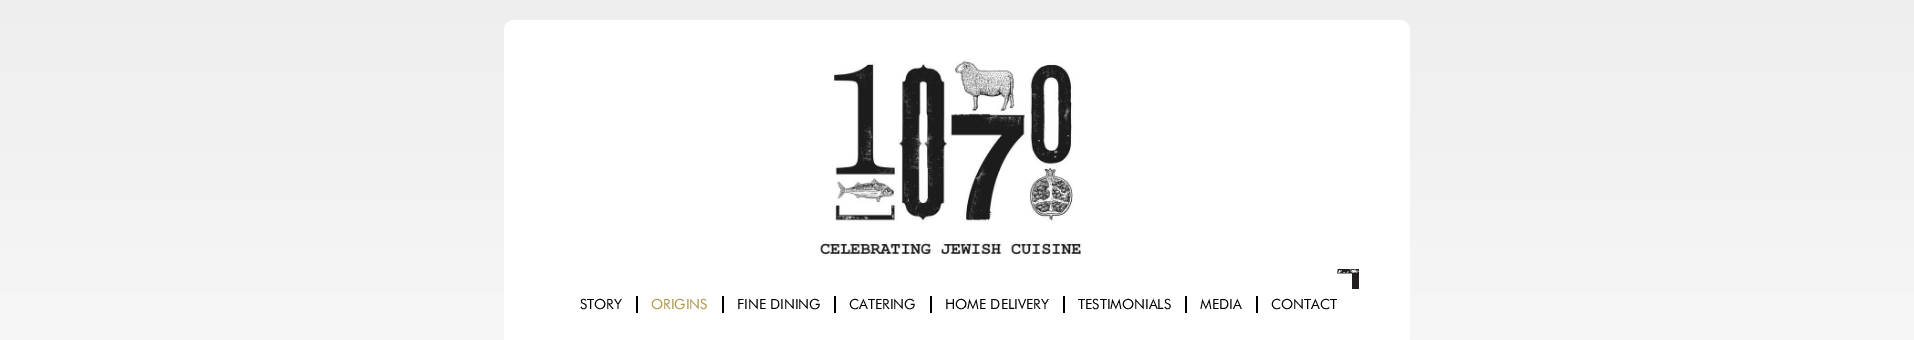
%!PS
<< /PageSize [1914 340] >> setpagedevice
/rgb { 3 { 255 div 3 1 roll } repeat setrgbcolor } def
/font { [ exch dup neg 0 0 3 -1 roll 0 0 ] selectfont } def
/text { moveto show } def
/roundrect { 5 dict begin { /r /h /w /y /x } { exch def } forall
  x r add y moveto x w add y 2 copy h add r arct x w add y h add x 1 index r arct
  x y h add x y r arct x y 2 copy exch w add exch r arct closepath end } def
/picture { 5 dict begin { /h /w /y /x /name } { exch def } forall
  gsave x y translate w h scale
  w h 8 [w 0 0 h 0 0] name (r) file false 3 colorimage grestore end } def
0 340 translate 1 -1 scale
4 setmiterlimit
255 255 255 rgb
0 0 1914 340 rectfill
(img_01.rgb) 0 0 1914 340 picture
504 20 906 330 10 roundrect fill
(img_02.rgb) 818 59 265 197 picture
(img_03.rgb) 1337 269 22 20 picture
0 0 0 rgb
636 296 2 17 rectfill
722 296 2 17 rectfill
834 296 2 17 rectfill
930 296 2 17 rectfill
1063 296 2 17 rectfill
1185 296 2 17 rectfill
1256 296 2 17 rectfill
/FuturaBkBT-Regular 14 font
(STORY) 580 309 text
173 149 74 rgb
(ORIGINS) 651 309 text
0 0 0 rgb
(FINE DINING) 737 309 text
(CATERING) 849 309 text
(HOME DELIVERY) 945 309 text
(TESTIMONIALS) 1078 309 text
(MEDIA) 1200 309 text
(CONTACT) 1271 309 text
showpage
